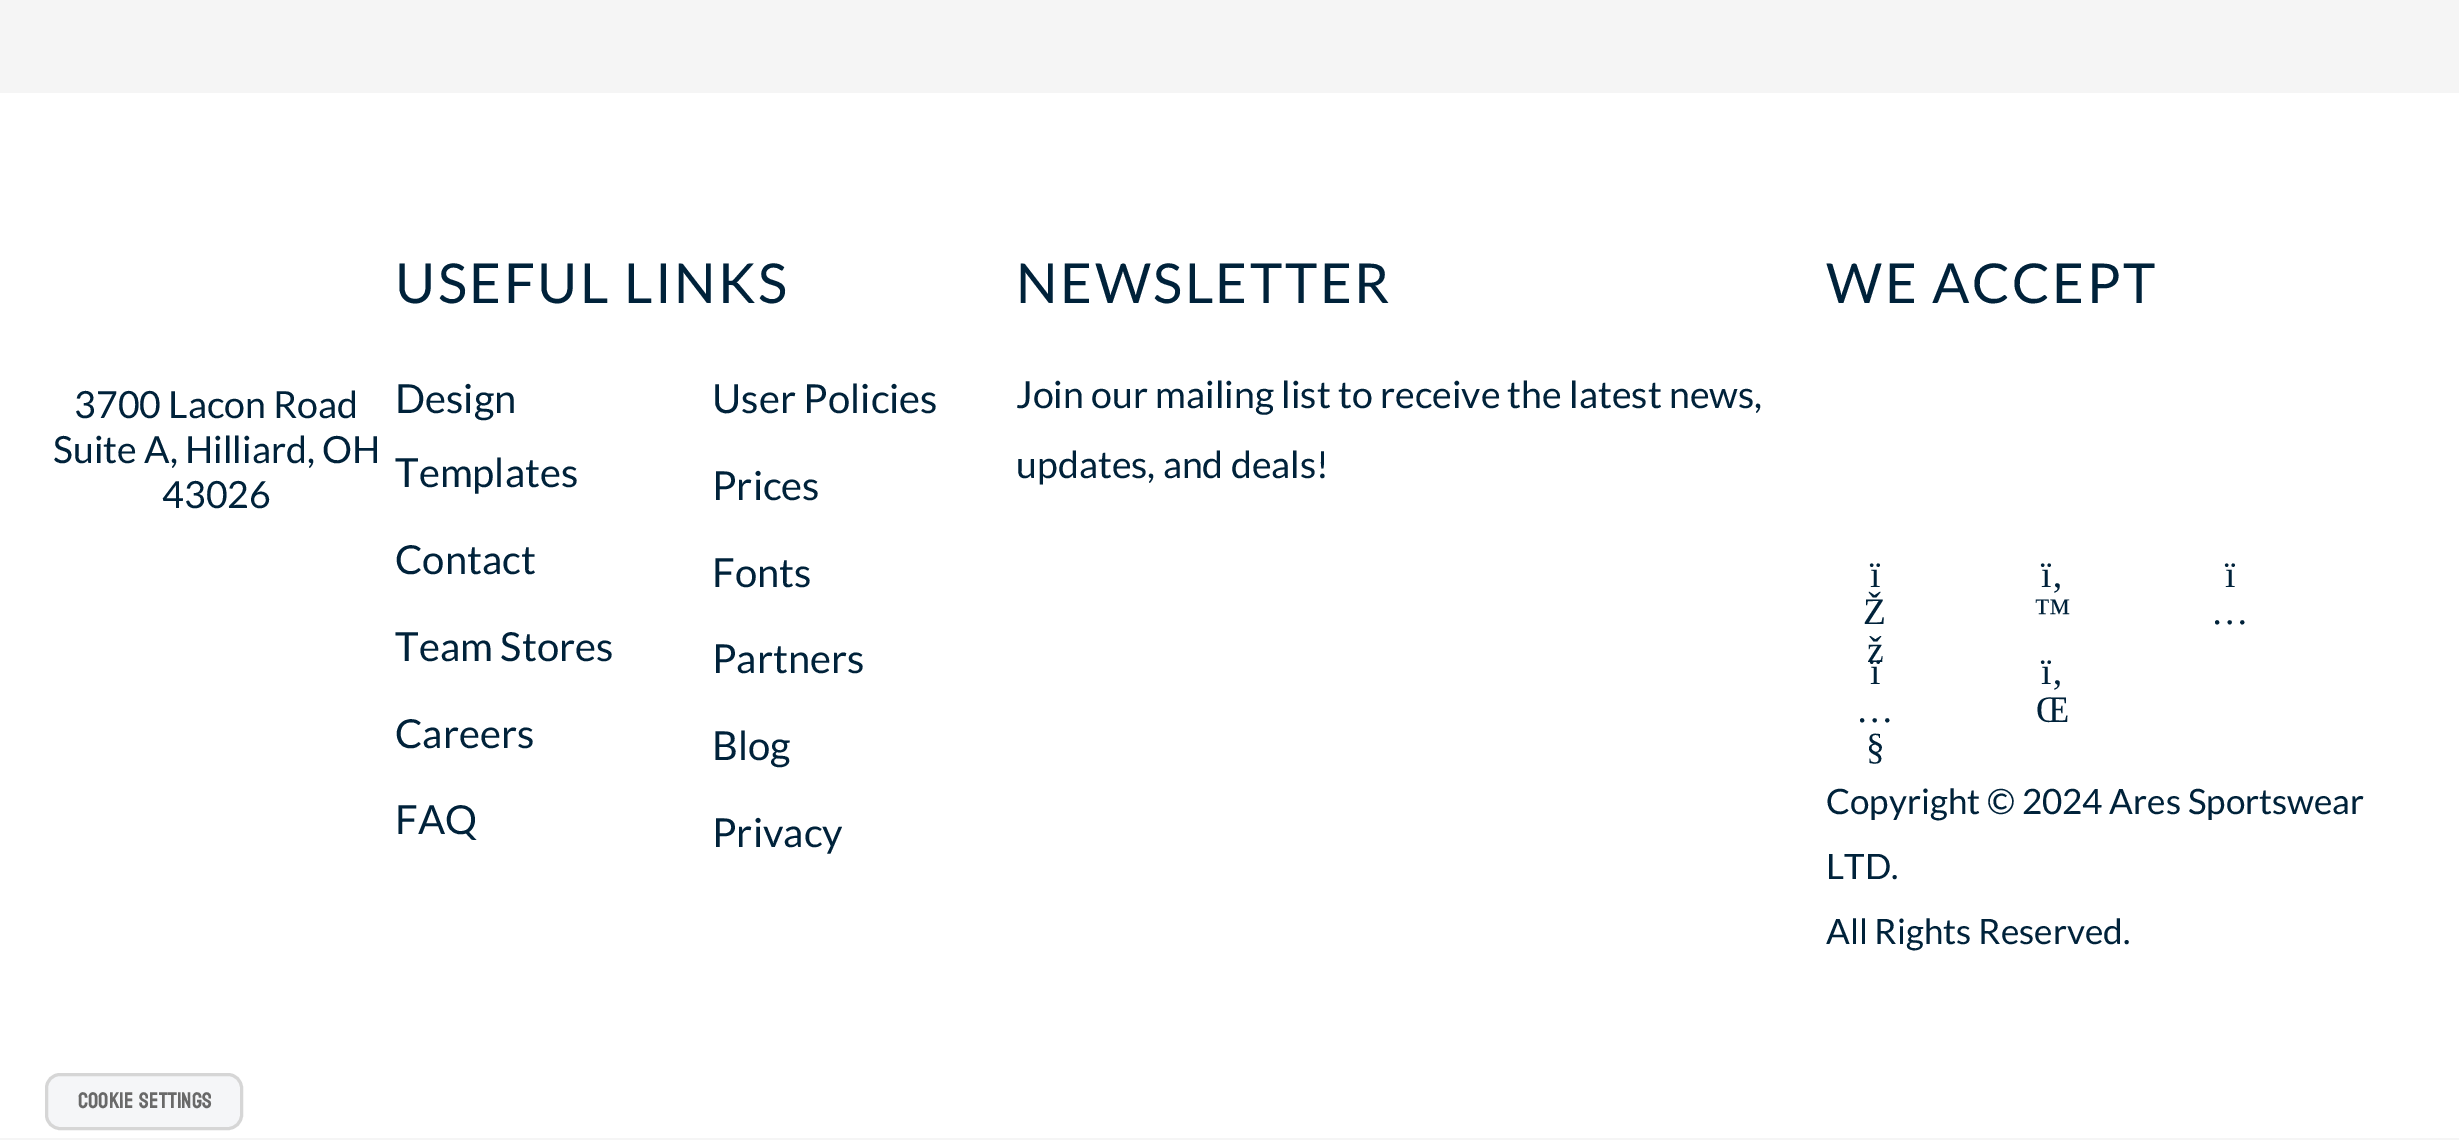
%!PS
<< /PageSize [2459 1140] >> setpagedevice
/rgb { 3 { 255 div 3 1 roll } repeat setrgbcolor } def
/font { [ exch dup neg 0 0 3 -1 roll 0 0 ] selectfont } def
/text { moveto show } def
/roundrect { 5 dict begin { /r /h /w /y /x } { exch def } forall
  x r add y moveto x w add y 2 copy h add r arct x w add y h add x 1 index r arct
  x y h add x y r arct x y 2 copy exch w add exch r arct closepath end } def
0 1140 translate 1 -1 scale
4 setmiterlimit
245 245 245 rgb
0 0 2459 1140 rectfill
255 255 255 rgb
0 93 2459 1045 rectfill
245 246 248 rgb
46.5 1074.5 195 54 13.5 roundrect gsave fill grestore
214 214 214 rgb
3 setlinewidth
stroke
/Lato-Regular 37.5 font
0 34 58 rgb
(3700 Lacon Road) 74 418 text
(Suite A, Hilliard, OH) 53 463 text
(43026) 162 508 text
/Lato-Regular 55 font
395 303 moveto 2.5 0 (USEFUL LINKS) ashow
/Lato-Regular 40 font
(Design) 395 413 text
(Templates) 395 487 text
(User Policies) 712 413 text
(Prices) 712 500 text
(Contact) 395 574 text
(Fonts) 712 587 text
(Team Stores) 395 661 text
(Partners) 712 673 text
(Careers) 395 748 text
(Blog) 712 760 text
(FAQ) 395 834 text
(Privacy) 712 847 text
/Lato-Regular 55 font
1016 303 moveto 2.5 0 (NEWSLETTER) ashow
/Lato-Regular 37.5 font
(Join our mailing list to receive the latest news,) 1016 408 text
(updates, and deals!) 1016 478 text
/Lato-Regular 55 font
1826 303 moveto 2.5 0 (WE ACCEPT) ashow
/LiberationSerif-Regular 37.5 font
(ï) 1870 587 text
(Ž) 1863 624 text
(ž) 1867 662 text
(ï‚) 2041 587 text
(™) 2034 624 text
(ï) 2225 587 text
(…) 2211 624 text
(ï) 1870 684 text
(…) 1856 722 text
(§) 1866 759 text
(ï‚) 2041 684 text
(Œ) 2036 722 text
/Lato-Regular 35 font
(Copyright © 2024 Ares Sportswear) 1826 814 text
(LTD.) 1826 879 text
(All Rights Reserved.) 1826 944 text
/Koulen-Regular 22.5 font
105 105 105 rgb
(Cookie Settings) 78 1108 text
showpage
